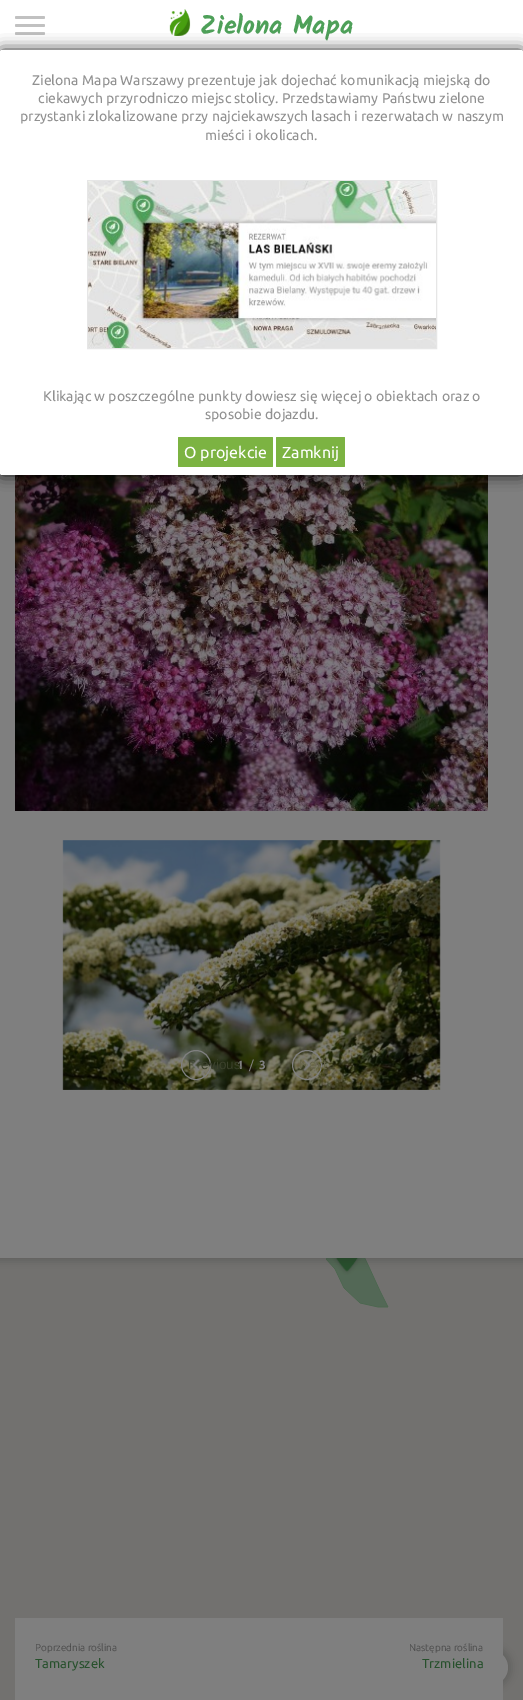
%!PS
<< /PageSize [523 1700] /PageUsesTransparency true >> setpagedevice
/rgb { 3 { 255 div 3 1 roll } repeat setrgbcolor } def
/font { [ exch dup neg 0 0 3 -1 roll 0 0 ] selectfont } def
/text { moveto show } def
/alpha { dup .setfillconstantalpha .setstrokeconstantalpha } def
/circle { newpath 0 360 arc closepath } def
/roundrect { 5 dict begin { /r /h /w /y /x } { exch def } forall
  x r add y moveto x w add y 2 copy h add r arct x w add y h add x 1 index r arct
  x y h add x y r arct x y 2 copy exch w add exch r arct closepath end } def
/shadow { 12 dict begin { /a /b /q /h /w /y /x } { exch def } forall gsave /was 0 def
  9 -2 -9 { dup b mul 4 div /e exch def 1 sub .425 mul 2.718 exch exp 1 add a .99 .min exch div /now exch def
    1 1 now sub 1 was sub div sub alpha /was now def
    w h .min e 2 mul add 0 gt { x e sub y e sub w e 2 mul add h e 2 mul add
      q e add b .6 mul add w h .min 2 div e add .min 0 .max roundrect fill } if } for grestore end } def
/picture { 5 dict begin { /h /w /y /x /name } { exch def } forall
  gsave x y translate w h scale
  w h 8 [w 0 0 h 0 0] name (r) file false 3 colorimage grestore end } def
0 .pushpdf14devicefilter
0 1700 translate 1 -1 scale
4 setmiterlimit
229 227 223 rgb
0 0 523 1700 rectfill
255 255 255 rgb
0 50 523 2 rectfill
69 68 68 rgb
-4 -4 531 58 0 4 0.2 shadow
255 255 255 rgb
0 0 523 50 rectfill
193 193 193 rgb
15 24 30 3 1.5 roundrect fill
15 16 30 3 1.5 roundrect fill
15 32 30 3 1.5 roundrect fill
(img_01.rgb) 169 9 22 27 picture
(img_07.rgb) 326 1258 63 50 picture
(img_08.rgb) 332 1258 30 17 picture
69 68 68 rgb
-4 106 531 1156 0 4 0.2 shadow
255 255 255 rgb
0 473 523 785 rectfill
(img_03.rgb) 15 475 473 336 picture
(img_04.rgb) 62 840 379 250 picture
196 1065 14.5 circle stroke
307 1065 14.5 circle stroke
69 68 68 rgb
469 1646 43 43 21.5 4 0.2 shadow
255 255 255 rgb
490.5 1667.5 17.5 circle fill
15 1618 488 82 rectfill
/Kalam-Bold 26 font
78 160 89 rgb
(Zielona Mapa) 200 34 text
/LiberationSans-Regular 13.5 font
206 203 151 rgb
(Next) 299 1069 text
(img_06.rgb) 303 1059 8 13 picture
/Ubuntu-Bold 12 font
255 255 255 rgb
(1) 237 1069 text
/LiberationSans-Regular 13.5 font
118 130 87 rgb
(Previous) 188 1069 text
(img_05.rgb) 192 1058 8 13 picture
/Ubuntu-Regular 12 font
255 255 255 rgb
(/) 249 1069 text
/Ubuntu-Bold 12 font
(3) 259 1069 text
/Ubuntu-Light 10 font
137 137 137 rgb
(Poprzednia roślina) 35 1651 text
/Ubuntu-Regular 13 font
78 160 89 rgb
(Tamaryszek) 35 1668 text
/Ubuntu-Light 10 font
137 137 137 rgb
(Następna roślina) 409 1651 text
/Ubuntu-Regular 13 font
78 160 89 rgb
(Trzmielina) 422 1668 text
0.5 alpha
0 0 0 rgb
0 473 523 1227 rectfill
1 alpha
0 50 523 425 2 7.5 0.8 shadow
255 255 255 rgb
0 50 523 425 2 roundrect fill
124 179 66 rgb
276 437 69 30 1 roundrect fill
/Ubuntu-Regular 16 font
255 255 255 rgb
(Zamknij) 282 458 text
124 179 66 rgb
178 437 95 30 1 roundrect fill
255 255 255 rgb
(O projekcie) 184 458 text
/Ubuntu-Regular 14 font
145 145 145 rgb
(sposobie dojazdu.) 205 419 text
(Klikając w poszczególne punkty dowiesz się więcej o obiektach oraz o) 43 401 text
230 230 230 rgb
87.5 180.5 349 168 rectstroke
(img_02.rgb) 88 181 348 167 picture
145 145 145 rgb
(mieści i okolicach.) 205 140 text
(przystanki zlokalizowane przy najciekawszych lasach i rezerwatach w naszym) 20 121 text
(ciekawych przyrodniczo miejsc stolicy. Przedstawiamy Państwu zielone) 38 103 text
(Zielona Mapa Warszawy prezentuje jak dojechać komunikacją miejską do) 32 85 text
.poppdf14devicefilter showpage
